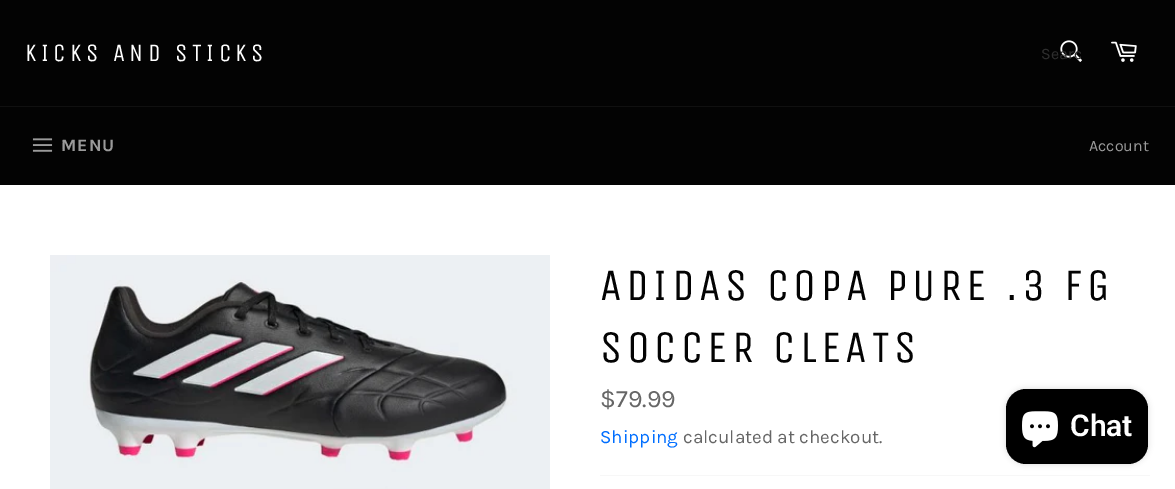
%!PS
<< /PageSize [1175 489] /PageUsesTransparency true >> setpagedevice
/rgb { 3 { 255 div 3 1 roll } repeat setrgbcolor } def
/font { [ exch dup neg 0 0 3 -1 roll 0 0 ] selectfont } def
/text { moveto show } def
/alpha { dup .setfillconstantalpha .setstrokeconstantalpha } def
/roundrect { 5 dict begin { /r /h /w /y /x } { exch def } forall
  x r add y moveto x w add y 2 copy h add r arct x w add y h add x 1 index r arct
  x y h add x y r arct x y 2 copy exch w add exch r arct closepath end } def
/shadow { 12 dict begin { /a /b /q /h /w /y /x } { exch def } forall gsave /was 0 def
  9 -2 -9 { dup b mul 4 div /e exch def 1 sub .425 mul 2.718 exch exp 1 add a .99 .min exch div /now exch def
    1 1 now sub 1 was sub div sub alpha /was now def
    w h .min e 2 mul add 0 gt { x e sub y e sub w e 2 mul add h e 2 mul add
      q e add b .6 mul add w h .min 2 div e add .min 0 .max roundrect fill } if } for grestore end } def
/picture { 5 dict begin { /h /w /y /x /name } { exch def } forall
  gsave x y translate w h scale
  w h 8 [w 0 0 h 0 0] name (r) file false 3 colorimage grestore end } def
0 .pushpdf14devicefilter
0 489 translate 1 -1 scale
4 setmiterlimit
3 3 3 rgb
0 0 1175 489 rectfill
(img_01.rgb) 1060 40 22 22 picture
(img_02.rgb) 1111 41 26 21 picture
16 16 16 rgb
0 106 1175 1 rectfill
(img_03.rgb) 32 138 21 14 picture
255 255 255 rgb
0 185 1175 304 rectfill
(img_04.rgb) 50 255 500 234 picture
247 247 247 rgb
600 475 550 1 rectfill
0 0 0 rgb
1006 389 142 75 20 3 0.15 shadow
1006 389 142 75 20 roundrect fill
(img_05.rgb) 1022 411 36 37 picture
/UnicaOne-Regular 25 font
255 255 255 rgb
25 61 moveto 4.5 0 (KICKS AND STICKS) ashow
gsave
1041 44 40 19 rectclip
/Karla-Regular 16 font
46 46 46 rgb
(Searc) 1041 59 text
grestore
/Karla-Bold 17.5 font
154 154 154 rgb
61 151 moveto 1 0 (MENU) ashow
/Karla-Regular 16 font
(Account) 1089 151 text
/UnicaOne-Regular 45 font
3 3 3 rgb
600 300 moveto 4.5 0 (ADIDAS COPA PURE .3 FG) ashow
600 362 moveto 4.5 0 (SOCCER CLEATS) ashow
/Karla-Regular 25 font
102 102 102 rgb
($79.99) 600 407 text
/Karla-Regular 18.75 font
0 110 255 rgb
(Shipping) 600 443 text
102 102 102 rgb
(calculated at checkout.) 683 443 text
/Roboto-SemiBold 30 font
255 255 255 rgb
(Chat) 1070 436 text
.poppdf14devicefilter showpage
